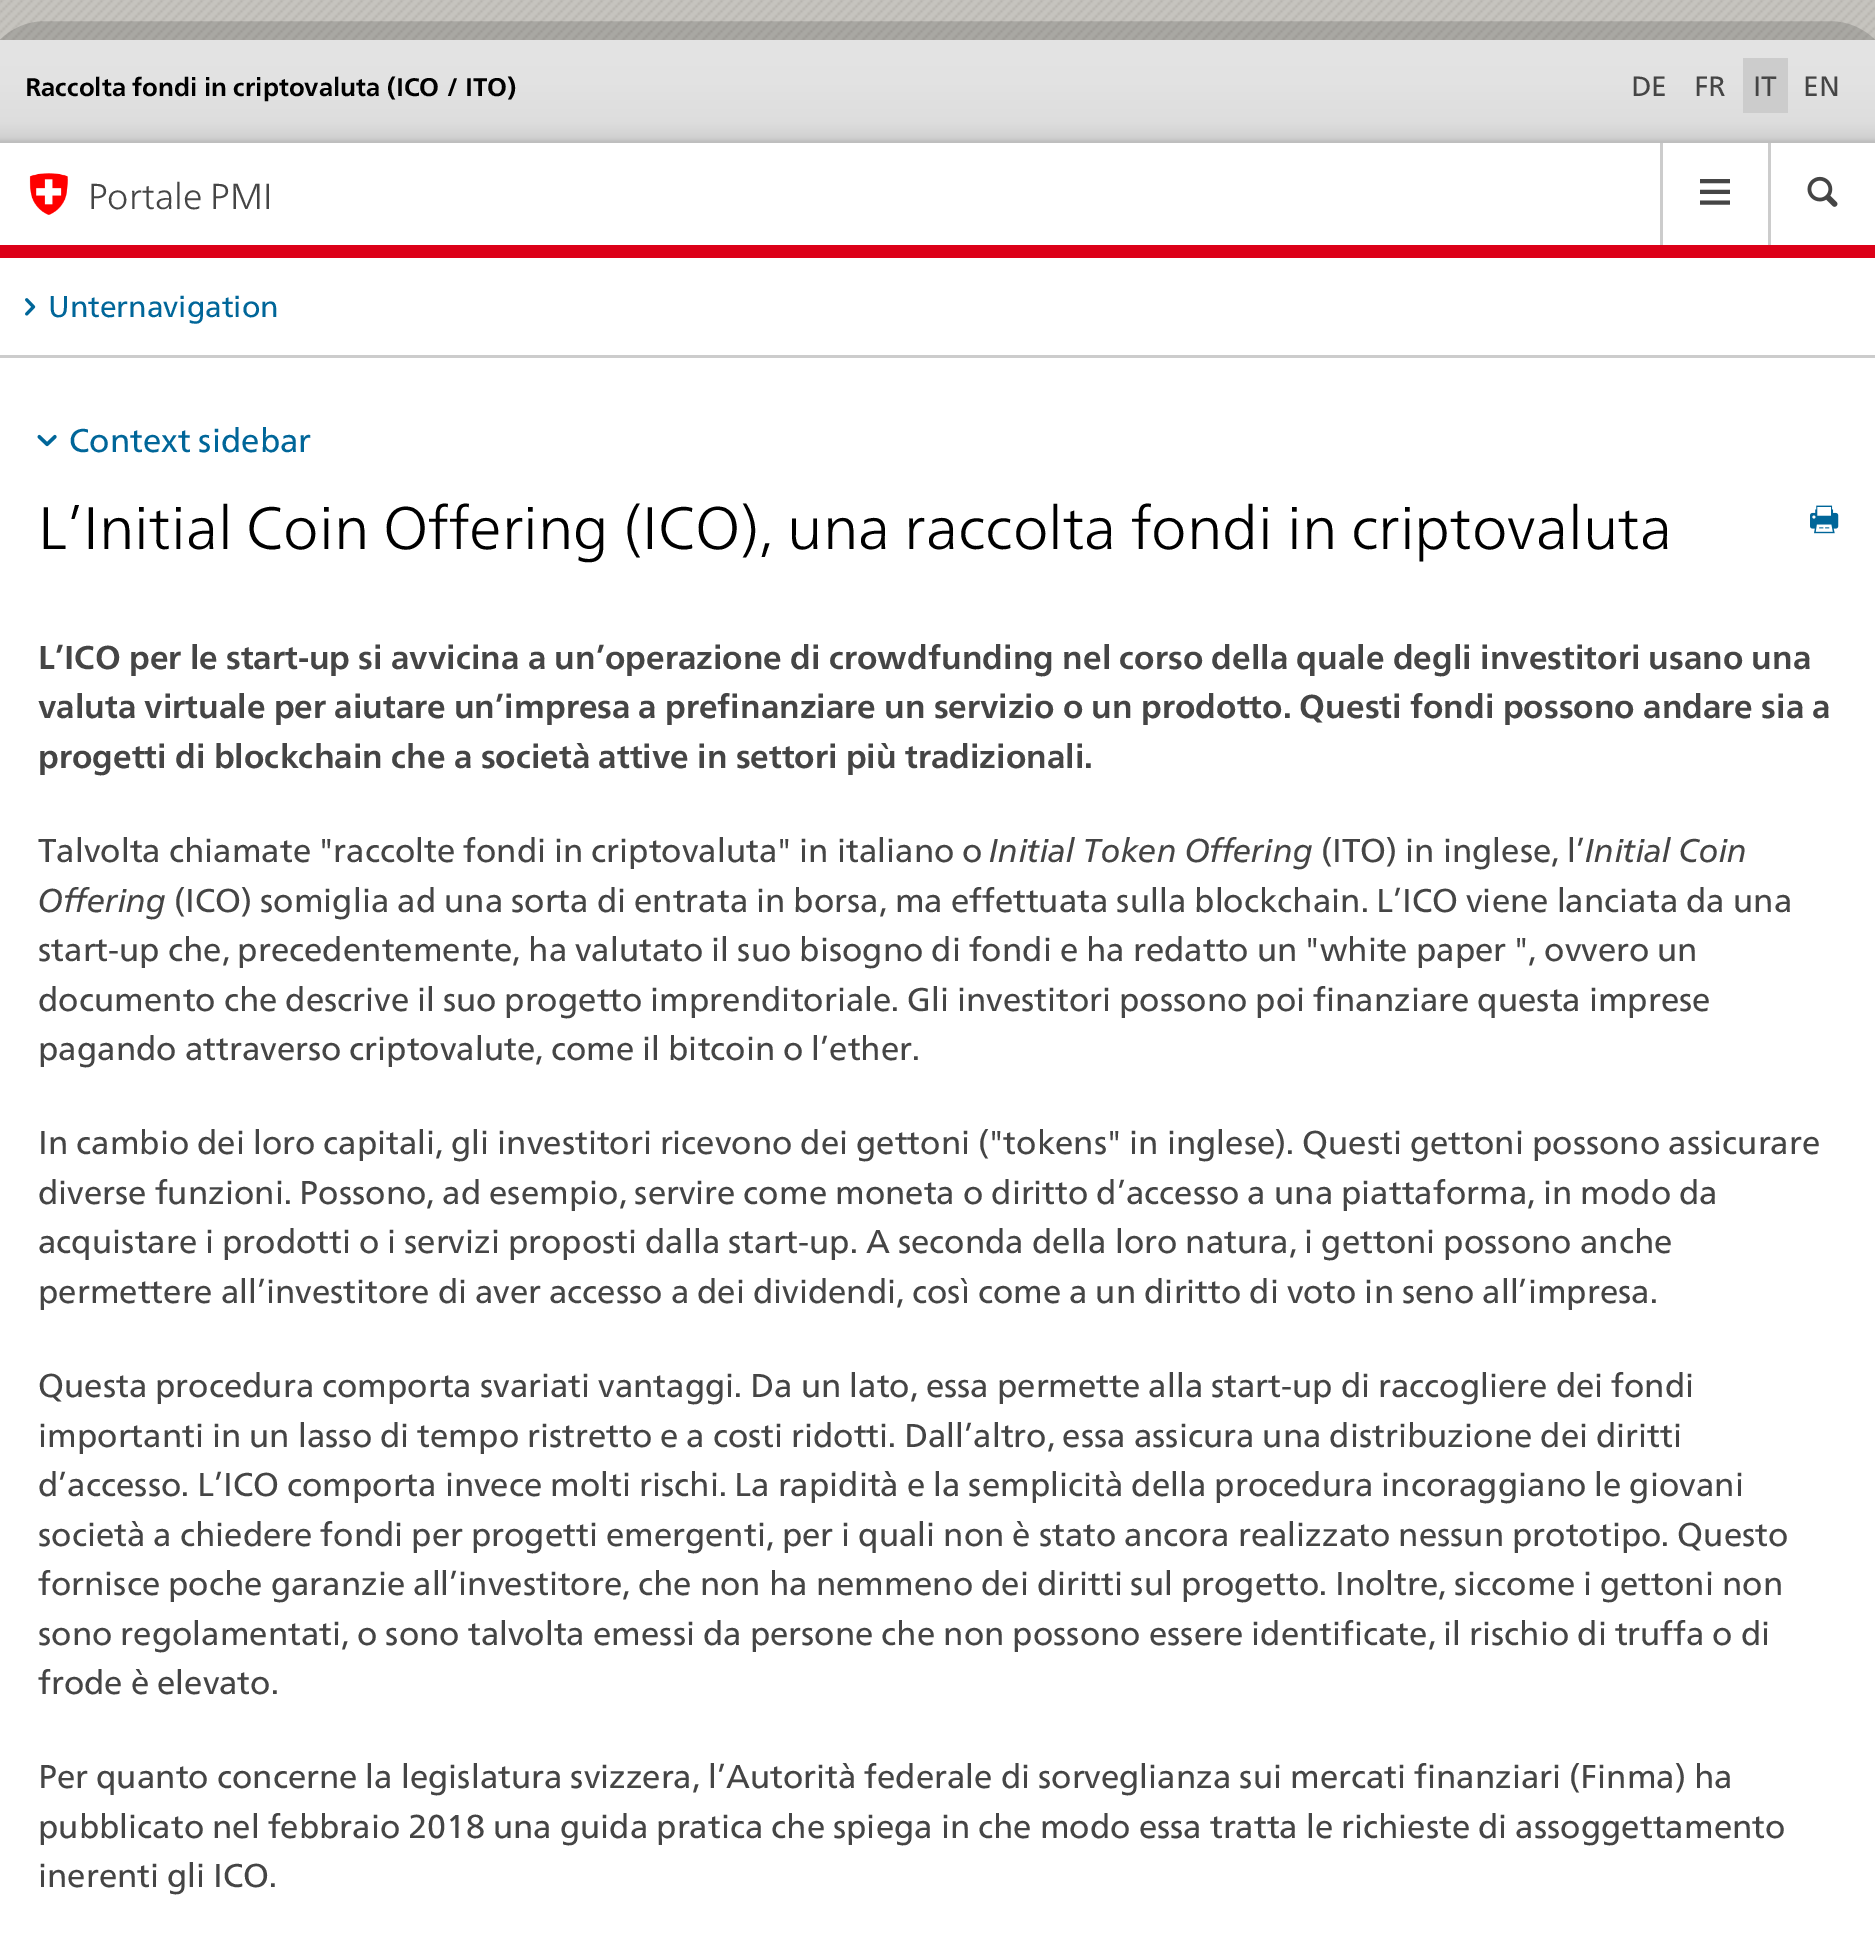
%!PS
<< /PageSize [1875 1950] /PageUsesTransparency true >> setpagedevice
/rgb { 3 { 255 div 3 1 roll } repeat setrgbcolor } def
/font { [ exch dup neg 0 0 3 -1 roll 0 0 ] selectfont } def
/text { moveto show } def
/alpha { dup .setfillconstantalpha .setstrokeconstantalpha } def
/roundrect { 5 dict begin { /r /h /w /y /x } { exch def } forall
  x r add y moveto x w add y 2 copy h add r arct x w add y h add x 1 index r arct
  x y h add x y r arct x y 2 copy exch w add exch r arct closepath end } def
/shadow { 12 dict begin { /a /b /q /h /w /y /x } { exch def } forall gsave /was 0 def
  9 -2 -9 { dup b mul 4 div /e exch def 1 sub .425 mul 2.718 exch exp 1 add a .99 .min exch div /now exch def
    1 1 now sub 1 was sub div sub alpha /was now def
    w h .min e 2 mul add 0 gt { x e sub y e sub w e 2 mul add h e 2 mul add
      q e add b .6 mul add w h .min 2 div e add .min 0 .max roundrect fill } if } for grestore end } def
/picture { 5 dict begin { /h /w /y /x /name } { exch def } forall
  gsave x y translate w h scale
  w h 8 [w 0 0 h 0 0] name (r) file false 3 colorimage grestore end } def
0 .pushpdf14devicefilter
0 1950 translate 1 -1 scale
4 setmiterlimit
255 255 255 rgb
0 0 1875 1950 rectfill
(img_01.rgb) 0 0 1875 40 picture
0 0 0 rgb
0 40 1875 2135 0 75 0.6 shadow
255 255 255 rgb
0 143 1875 1807 rectfill
gsave 0 40 moveto 1875 0 rlineto 0 103 rlineto -1875 0 rlineto closepath clip newpath
<< /ShadingType 2 /ColorSpace /DeviceRGB /Coords [938 40 938 143] /Extend [true true] /Function << /FunctionType 3 /Domain [0 1] /Functions [<< /FunctionType 2 /Domain [0 1] /C0 [0.894 0.894 0.894] /C1 [0.886 0.886 0.886] /N 1 >> << /FunctionType 2 /Domain [0 1] /C0 [0.886 0.886 0.886] /C1 [0.867 0.867 0.867] /N 1 >> << /FunctionType 2 /Domain [0 1] /C0 [0.867 0.867 0.867] /C1 [0.835 0.835 0.835] /N 1 >> << /FunctionType 2 /Domain [0 1] /C0 [0.835 0.835 0.835] /C1 [0.812 0.812 0.812] /N 1 >> << /FunctionType 2 /Domain [0 1] /C0 [0.812 0.812 0.812] /C1 [0.745 0.745 0.745] /N 1 >> << /FunctionType 2 /Domain [0 1] /C0 [0.745 0.745 0.745] /C1 [0.745 0.745 0.745] /N 1 >>] /Bounds [0.39 0.79 0.91 0.95 0.99] /Encode [0 1 0 1 0 1 0 1 0 1 0 1] >> >> shfill grestore
204 204 204 rgb
1743 58 45 55 rectfill
220 0 24 rgb
0 245 1875 13 rectfill
(img_02.rgb) 29 173 39 42 picture
204 204 204 rgb
1660 143 3 102 rectfill
(img_03.rgb) 1700 179 30 26 picture
1768 143 3 102 rectfill
(img_04.rgb) 1807 176 31 31 picture
0 355 1875 3 rectfill
(img_05.rgb) 25 298 11 18 picture
(img_06.rgb) 37 434 20 13 picture
(img_07.rgb) 1810 505 29 29 picture
/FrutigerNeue-Bold 25.5 font
0 0 0 rgb
(Raccolta fondi in criptovaluta \(ICO / ITO\)) 25 96 text
/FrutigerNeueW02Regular-Regular 28 font
69 69 69 rgb
(DE) 1631 96 text
(FR) 1694 96 text
(IT) 1753 96 text
(EN) 1803 96 text
/FrutigerNeue-Light 36 font
(Portale PMI) 88 209 text
/FrutigerNeueW02Regular-Regular 30 font
0 102 153 rgb
(Unternavigation) 48 317 text
/FrutigerNeueW02Regular-Regular 33 font
(Context sidebar) 69 452 text
/FrutigerNeue-Light 60 font
0 0 0 rgb
(L’Initial Coin Offering \(ICO\), una raccolta fondi in criptovaluta) 38 549 text
/FrutigerNeue-Bold 33 font
69 69 69 rgb
(L’ICO per le start-up si avvicina a un’operazione di crowdfunding nel corso della quale degli investitori usano una) 38 669 text
(valuta virtuale per aiutare un’impresa a prefinanziare un servizio o un prodotto. Questi fondi possono andare sia a) 38 718 text
(progetti di blockchain che a società attive in settori più tradizionali.) 38 768 text
/FrutigerNeueW02Regular-Regular 33 font
(Talvolta chiamate "raccolte fondi in criptovaluta" in italiano o) 38 862 text
/FrutigerNeue-Italic 33 font
(Initial Token Offering) 989 862 text
/FrutigerNeueW02Regular-Regular 33 font
(\(ITO\) in inglese, l’) 1321 862 text
/FrutigerNeue-Italic 33 font
(Initial Coin) 1585 862 text
(Offering) 38 912 text
/FrutigerNeueW02Regular-Regular 33 font
(\(ICO\) somiglia ad una sorta di entrata in borsa, ma effettuata sulla blockchain. L’ICO viene lanciata da una) 174 912 text
(start-up che, precedentemente, ha valutato il suo bisogno di fondi e ha redatto un "white paper ", ovvero un) 38 961 text
38 1011 moveto -0.1 0 32 (documento che descrive il suo progetto imprenditoriale. Gli investitori possono poi finanziare questa imprese) widthshow
(pagando attraverso criptovalute, come il bitcoin o l’ether.) 38 1060 text
(In cambio dei loro capitali, gli investitori ricevono dei gettoni \("tokens" in inglese\). Questi gettoni possono assicurare) 38 1154 text
(diverse funzioni. Possono, ad esempio, servire come moneta o diritto d’accesso a una piattaforma, in modo da) 38 1204 text
(acquistare i prodotti o i servizi proposti dalla start-up. A seconda della loro natura, i gettoni possono anche) 38 1253 text
(permettere all’investitore di aver accesso a dei dividendi, così come a un diritto di voto in seno all’impresa.) 38 1303 text
(Questa procedura comporta svariati vantaggi. Da un lato, essa permette alla start-up di raccogliere dei fondi) 38 1397 text
(importanti in un lasso di tempo ristretto e a costi ridotti. Dall’altro, essa assicura una distribuzione dei diritti) 38 1447 text
(d’accesso. L’ICO comporta invece molti rischi. La rapidità e la semplicità della procedura incoraggiano le giovani) 38 1496 text
(società a chiedere fondi per progetti emergenti, per i quali non è stato ancora realizzato nessun prototipo. Questo) 38 1546 text
(fornisce poche garanzie all’investitore, che non ha nemmeno dei diritti sul progetto. Inoltre, siccome i gettoni non) 38 1595 text
(sono regolamentati, o sono talvolta emessi da persone che non possono essere identificate, il rischio di truffa o di) 38 1645 text
(frode è elevato.) 38 1694 text
(Per quanto concerne la legislatura svizzera, l’Autorità federale di sorveglianza sui mercati finanziari \(Finma\) ha) 38 1788 text
(pubblicato nel febbraio 2018 una guida pratica che spiega in che modo essa tratta le richieste di assoggettamento) 38 1838 text
(inerenti gli ICO.) 38 1887 text
.poppdf14devicefilter showpage
